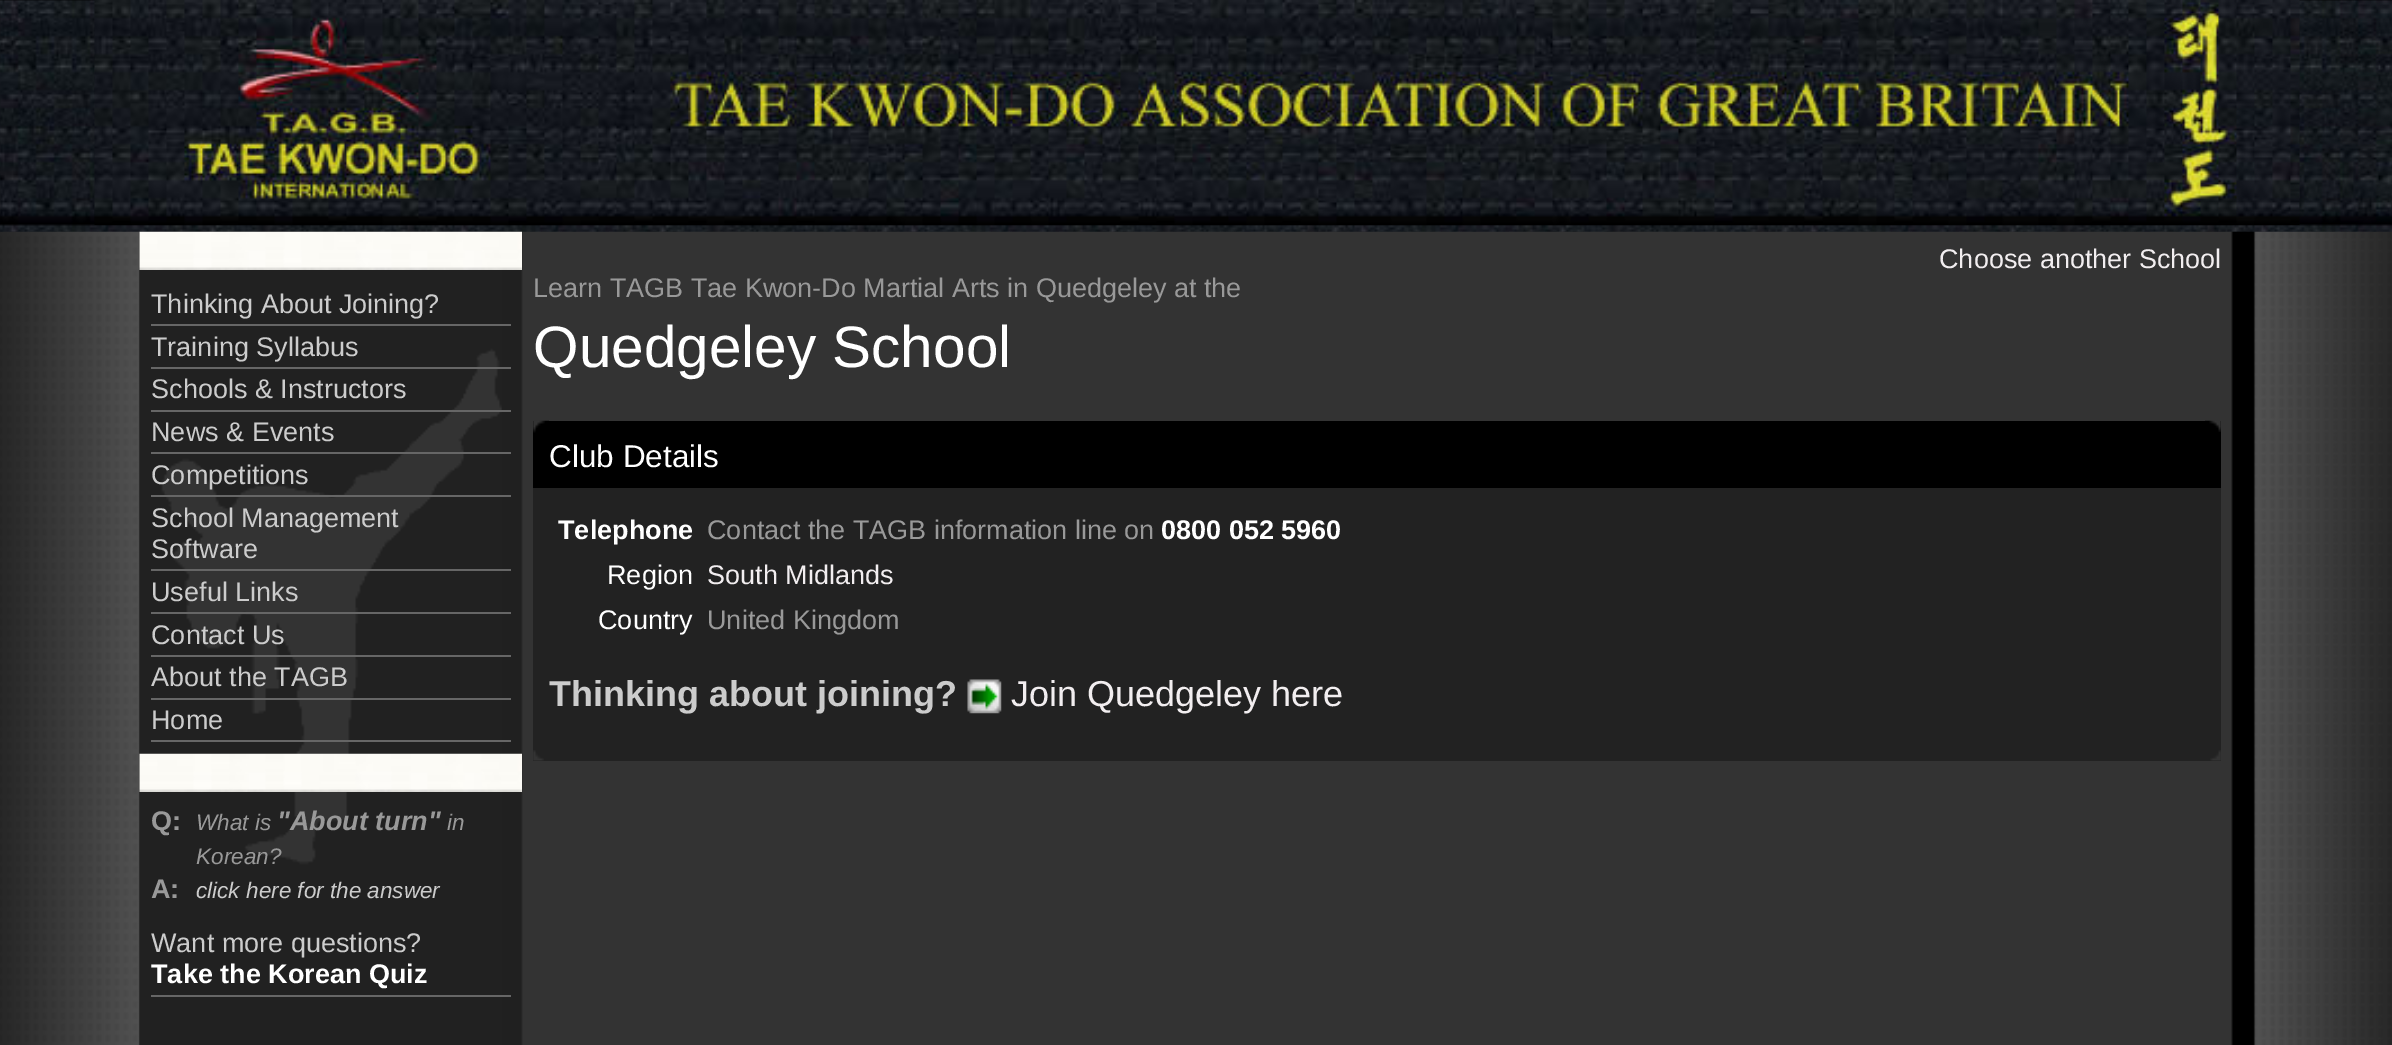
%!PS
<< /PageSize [2392 1045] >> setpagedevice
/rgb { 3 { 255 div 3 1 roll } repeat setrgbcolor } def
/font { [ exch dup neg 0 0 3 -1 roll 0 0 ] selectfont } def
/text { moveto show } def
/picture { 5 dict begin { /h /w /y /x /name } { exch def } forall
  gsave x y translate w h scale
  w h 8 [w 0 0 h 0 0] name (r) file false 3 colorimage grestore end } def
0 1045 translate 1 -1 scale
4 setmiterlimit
255 255 255 rgb
0 0 2392 1045 rectfill
(img_01.rgb) 0 231 2392 814 picture
(img_02.rgb) 0 0 2392 232 picture
(img_03.rgb) 94 0 2206 225 picture
(img_04.rgb) 139 232 363 813 picture
(img_05.rgb) 139 231 383 39 picture
102 102 102 rgb
151 324 360 2 rectfill
151 367 360 2 rectfill
151 410 360 2 rectfill
151 452 360 2 rectfill
151 495 360 2 rectfill
151 569 360 2 rectfill
151 612 360 2 rectfill
151 655 360 2 rectfill
151 698 360 2 rectfill
151 740 360 2 rectfill
(img_06.rgb) 139 753 383 39 picture
151 995 360 2 rectfill
0 0 0 rgb
533 421 1688 67 rectfill
(img_07.rgb) 533 420 16 13 picture
(img_08.rgb) 2205 420 16 12 picture
34 34 34 rgb
533 488 1688 273 rectfill
(img_09.rgb) 533 750 11 11 picture
(img_10.rgb) 2210 750 11 11 picture
(img_11.rgb) 967 679 35 35 picture
/LiberationSans-Regular 27 font
204 204 204 rgb
(Thinking About Joining?) 151 313 text
(Training Syllabus) 151 356 text
(Schools & Instructors) 151 398 text
(News & Events) 151 441 text
(Competitions) 151 484 text
(School Management) 151 527 text
(Software) 151 558 text
(Useful Links) 151 601 text
(Contact Us) 151 644 text
(About the TAGB) 151 686 text
(Home) 151 729 text
/LiberationSans-Bold 27 font
153 153 153 rgb
(Q:) 151 830 text
/LiberationSans-Italic 22.5 font
(What is) 196 830 text
/LiberationSans-BoldItalic 27 font
("About turn") 277 830 text
/LiberationSans-Italic 22.5 font
(in) 447 830 text
(Korean?) 196 864 text
/LiberationSans-Bold 27 font
(A:) 151 898 text
/LiberationSans-Italic 22.5 font
204 204 204 rgb
(click here for the answer) 196 898 text
/LiberationSans-Regular 27 font
(Want more questions?) 151 952 text
/LiberationSans-Bold 27 font
255 255 255 rgb
(Take the Korean Quiz) 151 983 text
/LiberationSans-Regular 27 font
242 238 240 rgb
(Choose another School) 1939 268 text
153 153 153 rgb
(Learn TAGB Tae Kwon-Do Martial Arts in Quedgeley at the) 533 297 text
/LiberationSans-Regular 58.5 font
255 255 255 rgb
(Quedgeley School) 533 367 text
/LiberationSans-Regular 31.5 font
(Club Details) 549 467 text
/LiberationSans-Bold 27 font
(Telephone) 558 539 text
/LiberationSans-Regular 27 font
153 153 153 rgb
(Contact the TAGB information line on) 707 539 text
/LiberationSans-Bold 27 font
255 255 255 rgb
(0800 052 5960) 1161 539 text
/LiberationSans-Regular 27 font
(Region) 607 584 text
242 238 240 rgb
(South Midlands) 707 584 text
255 255 255 rgb
(Country) 598 629 text
153 153 153 rgb
(United Kingdom) 707 629 text
/LiberationSans-Bold 36 font
204 204 204 rgb
(Thinking about joining?) 549 706 text
/LiberationSans-Regular 36 font
242 238 240 rgb
(Join Quedgeley here) 1011 706 text
showpage
